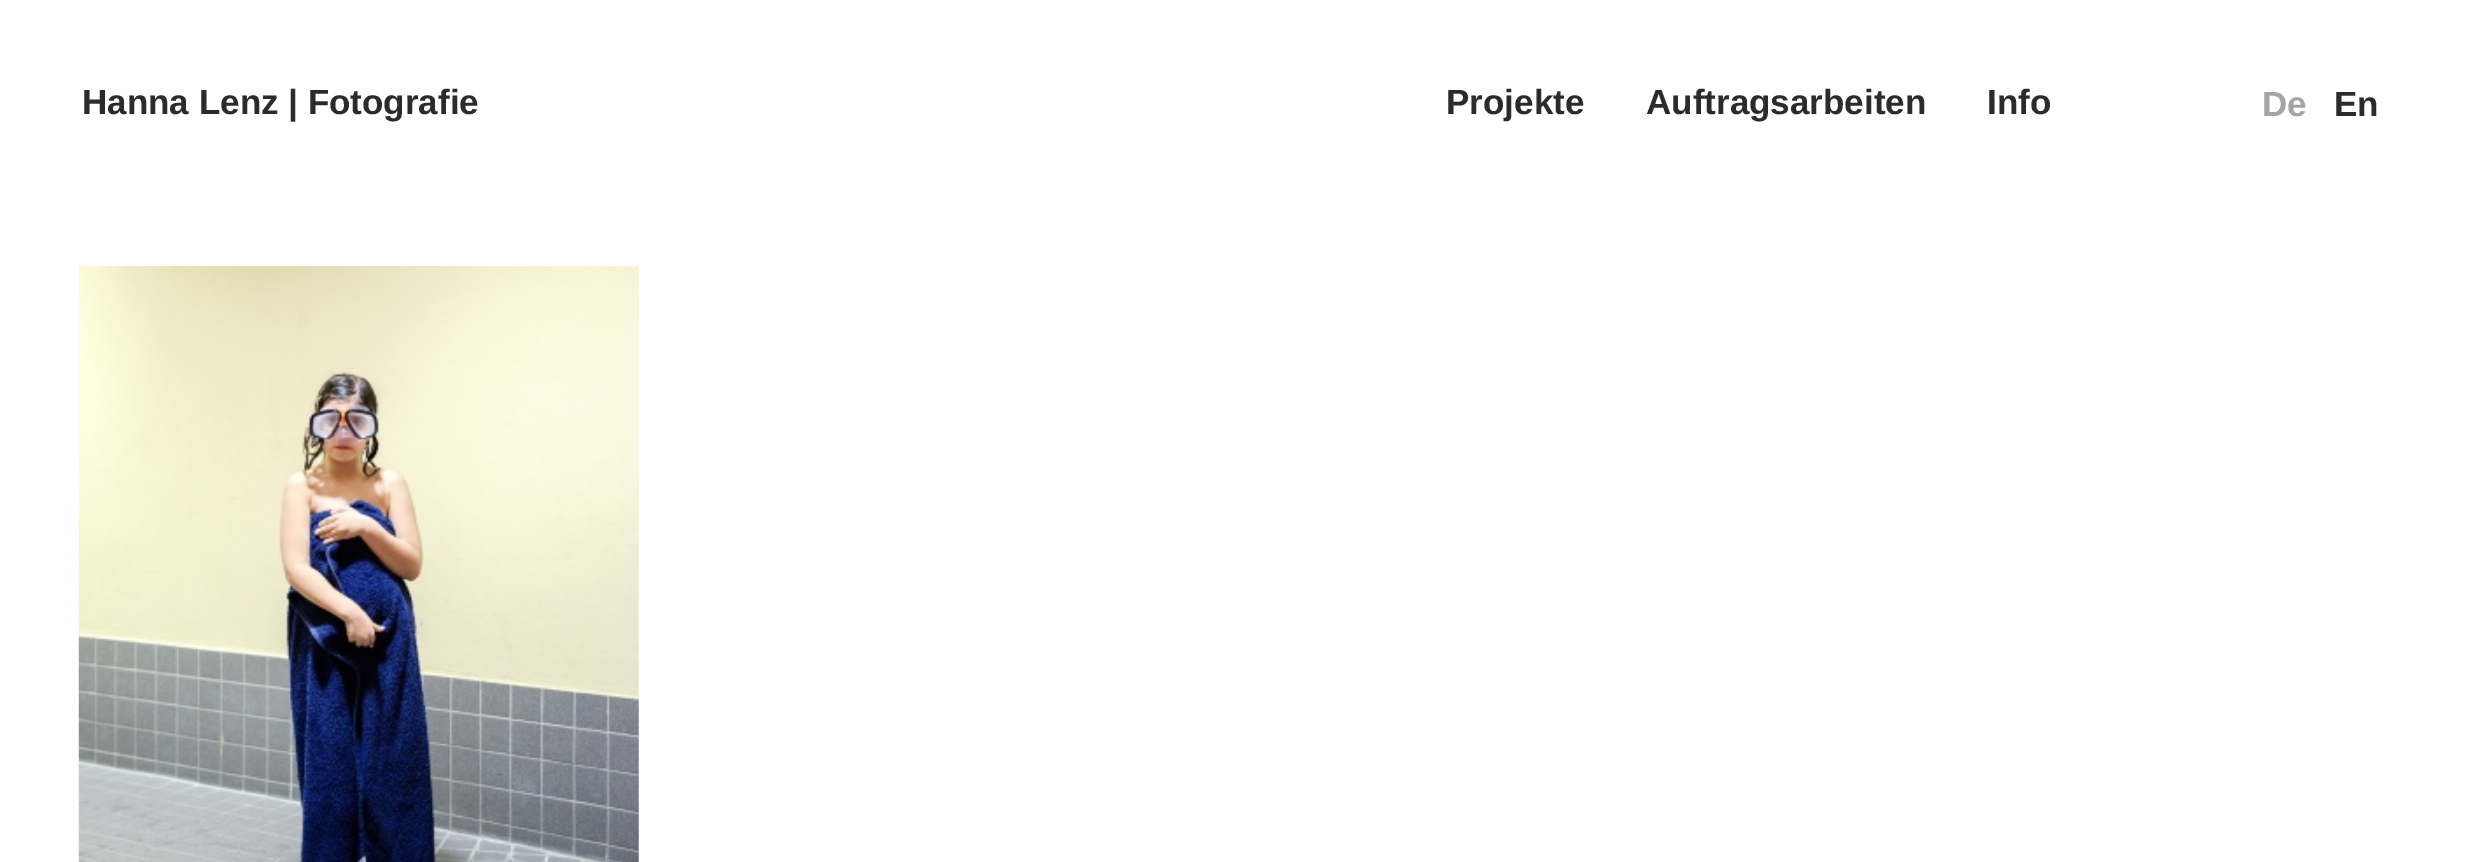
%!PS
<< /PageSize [2470 862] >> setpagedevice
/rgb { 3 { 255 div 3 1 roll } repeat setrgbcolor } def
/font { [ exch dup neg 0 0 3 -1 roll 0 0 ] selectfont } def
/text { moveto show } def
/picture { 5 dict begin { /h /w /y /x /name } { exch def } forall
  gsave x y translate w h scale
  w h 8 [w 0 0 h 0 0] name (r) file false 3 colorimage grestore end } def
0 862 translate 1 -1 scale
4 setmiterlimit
255 255 255 rgb
0 0 2470 862 rectfill
(img_01.rgb) 78 266 561 596 picture
/LiberationSans-Bold 35 font
44 43 42 rgb
(Hanna Lenz | Fotografie) 82 114 text
(Projekte) 1446 114 text
(Auftragsarbeiten) 1646 114 text
(Info) 1987 114 text
165 165 164 rgb
(De) 2262 116 text
44 43 42 rgb
(En) 2334 116 text
showpage
